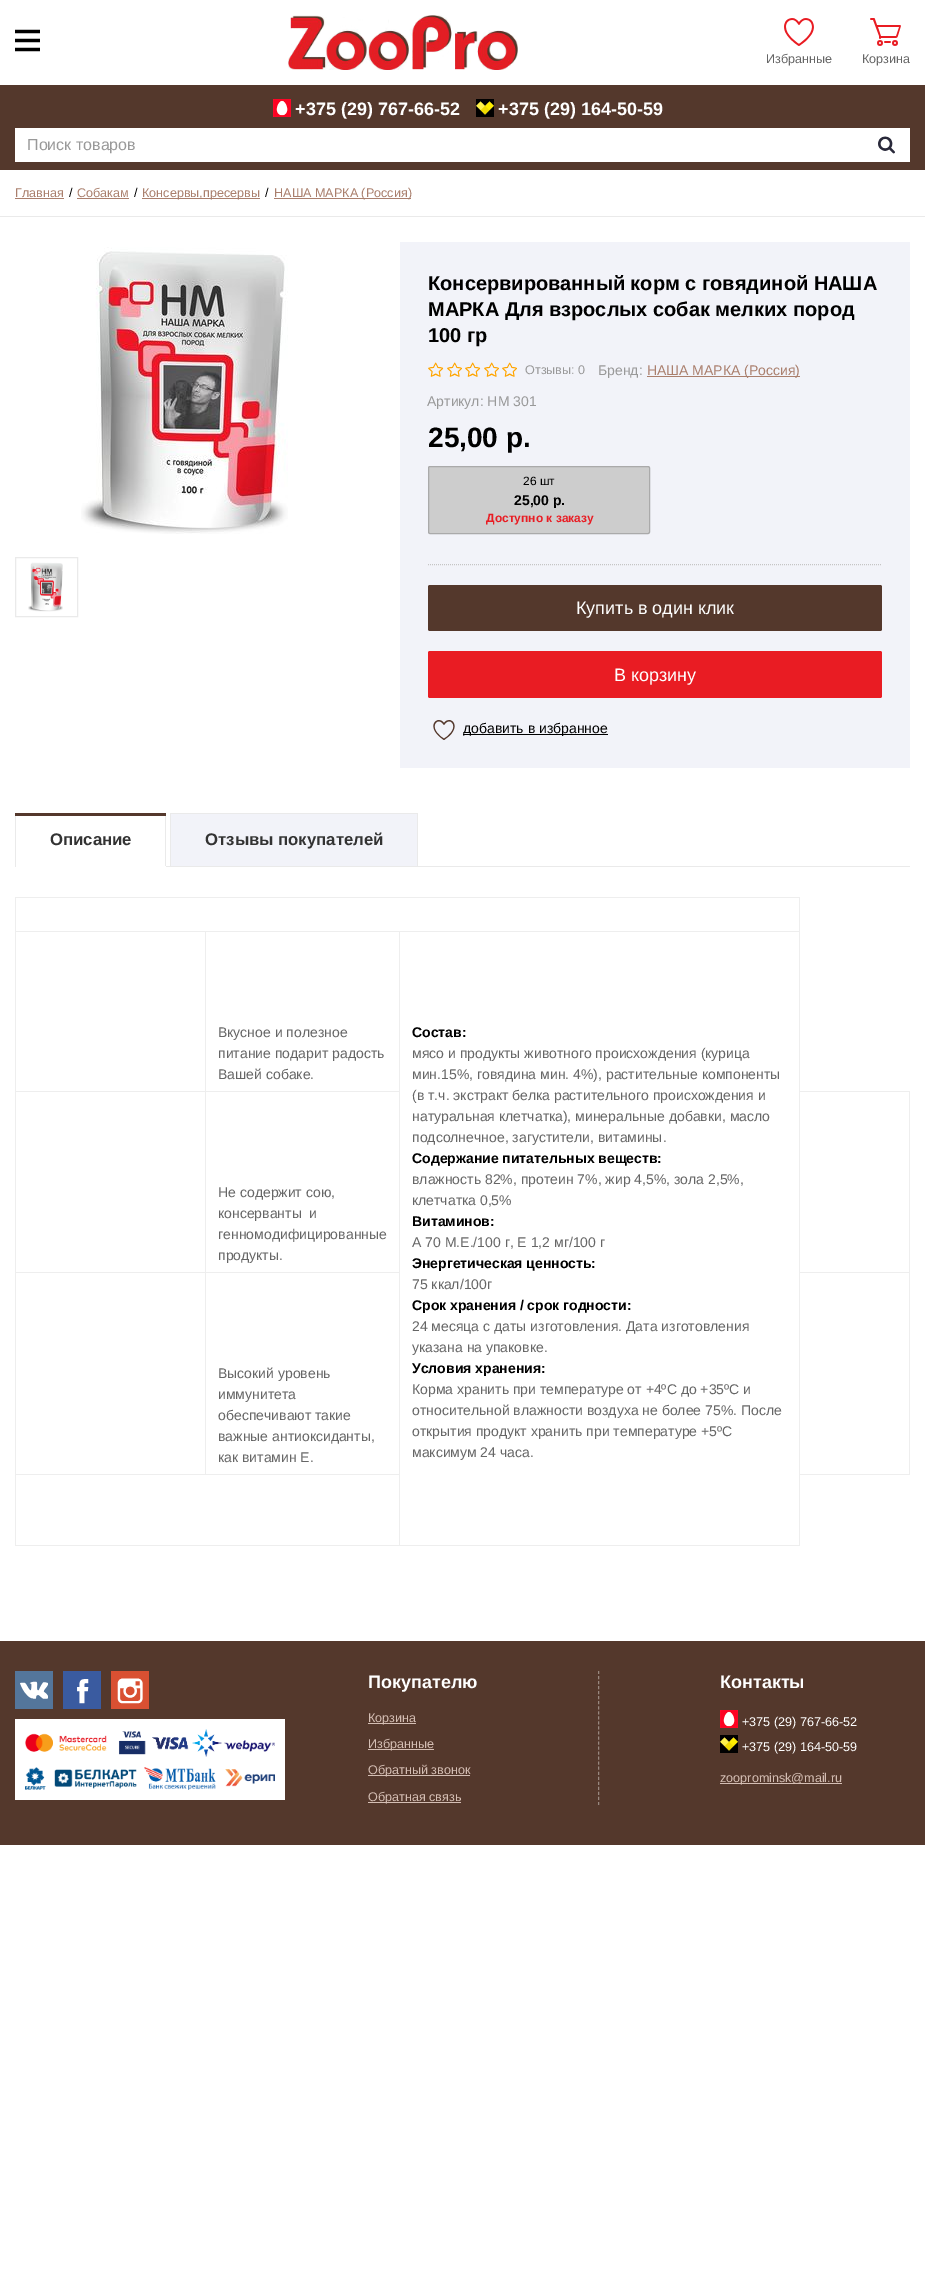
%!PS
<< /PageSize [925 2292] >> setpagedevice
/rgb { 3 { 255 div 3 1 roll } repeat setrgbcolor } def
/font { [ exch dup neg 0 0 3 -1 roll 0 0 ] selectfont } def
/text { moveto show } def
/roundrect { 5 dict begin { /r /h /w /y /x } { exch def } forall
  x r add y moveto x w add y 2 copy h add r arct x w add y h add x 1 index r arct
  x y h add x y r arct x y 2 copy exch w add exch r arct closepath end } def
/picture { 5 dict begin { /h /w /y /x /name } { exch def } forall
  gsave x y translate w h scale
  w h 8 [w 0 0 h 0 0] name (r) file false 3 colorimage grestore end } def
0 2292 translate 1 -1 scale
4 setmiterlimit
255 255 255 rgb
0 0 925 2292 rectfill
(img_01.rgb) 15 29 25 23 picture
(img_02.rgb) 288 15 230 55 picture
(img_03.rgb) 784 18 30 28 picture
(img_04.rgb) 870 18 31 28 picture
84 56 44 rgb
0 85 925 85 rectfill
(img_05.rgb) 273 99 18 18 picture
(img_06.rgb) 476 99 18 18 picture
255 255 255 rgb
15 128 895 34 rectfill
(img_07.rgb) 878 136 17 18 picture
234 234 234 rgb
0 216 925 1 rectfill
170 127 109 rgb
15 198 49 1 rectfill
77 198 52 1 rectfill
142 198 118 1 rectfill
274 198 137 1 rectfill
(img_08.rgb) 81 247 207 287 picture
234 234 234 rgb
15.5 557.5 62 59 rectstroke
(img_09.rgb) 28 562 35 50 picture
242 243 249 rgb
400 242 510 526 rectfill
(img_10.rgb) 428 362 16 15 picture
(img_11.rgb) 447 362 15 15 picture
(img_10.rgb) 465 362 16 15 picture
(img_11.rgb) 484 362 15 15 picture
(img_12.rgb) 502 362 15 15 picture
170 127 109 rgb
647 376 153 1 rectfill
205 205 205 rgb
428.5 466.5 221 67 1.5 roundrect gsave fill grestore
170 170 170 rgb
stroke
197 197 197 rgb
[1 1] 0 setdash
428 564.5 moveto 454 0 rlineto stroke
84 56 44 rgb
428 585 454 46 2 roundrect fill
233 28 35 rgb
428 651 454 47 2 roundrect fill
(img_13.rgb) 433 720 22 20 picture
0 0 0 rgb
463 734 145 1 rectfill
242 243 249 rgb
171 814 246 52 rectfill
234 234 234 rgb
170 813 248 1 rectfill
417 813 1 53 rectfill
170 813 1 53 rectfill
165 813 1 54 rectfill
255 255 255 rgb
165 866 1 1 rectfill
234 234 234 rgb
15 813 1 54 rectfill
84 56 44 rgb
15 813 151 3 rectfill
234 234 234 rgb
166 866 744 1 rectfill
238 238 238 rgb
15 897 785 1 rectfill
399 931 401 1 rectfill
799 1091 111 1 rectfill
799 1272 111 1 rectfill
909 1272 1 203 rectfill
799 1474 111 1 rectfill
799 931 1 615 rectfill
799 897 1 35 rectfill
15 1545 385 1 rectfill
399 1545 401 1 rectfill
205 1091 195 1 rectfill
205 1272 195 1 rectfill
15 1474 385 1 rectfill
399 931 1 615 rectfill
205 931 195 1 rectfill
205 1272 1 203 rectfill
15 1272 191 1 rectfill
205 1091 1 182 rectfill
15 1091 191 1 rectfill
205 931 1 161 rectfill
15 931 191 1 rectfill
15 1474 1 72 rectfill
15 1272 1 203 rectfill
15 1091 1 182 rectfill
15 931 1 161 rectfill
15 897 1 35 rectfill
909 1091 1 182 rectfill
84 56 44 rgb
0 1641 925 204 rectfill
84 118 155 rgb
15 1671 38 38 rectfill
(img_14.rgb) 20 1681 28 18 picture
58 91 160 rgb
63 1671 38 38 rectfill
(img_15.rgb) 77 1679 12 25 picture
217 80 50 rgb
111 1671 38 38 rectfill
(img_16.rgb) 117 1678 26 26 picture
255 255 255 rgb
15 1719 270 81 rectfill
(img_17.rgb) 25 1729 250 28 picture
(img_18.rgb) 25 1767 250 23 picture
212 190 180 rgb
368 1723 48 1 rectfill
368 1749 66 1 rectfill
368 1775 102 1 rectfill
368 1802 93 1 rectfill
152 136 128 rgb
[3 2.04] 0 setdash
598.5 1671 moveto 0 134 rlineto stroke
(img_19.rgb) 720 1710 18 18 picture
(img_20.rgb) 720 1735 18 18 picture
212 190 180 rgb
720 1783 122 1 rectfill
/LiberationSans-Regular 12.6 font
102 102 102 rgb
(Избранные) 766 63 text
(Корзина) 862 63 text
/LiberationSans-Bold 18 font
255 255 255 rgb
(+375 \(29\) 767-66-52) 295 115 text
(+375 \(29\) 164-50-59) 498 115 text
/LiberationSans-Regular 16 font
153 153 153 rgb
(Поиск товаров) 27 150 text
/LiberationSans-Regular 12.6 font
170 127 109 rgb
(Главная) 15 197 text
0 0 0 rgb
(/) 69 197 text
170 127 109 rgb
(Собакам) 77 197 text
0 0 0 rgb
(/) 134 197 text
170 127 109 rgb
(Консервы,пресервы) 142 197 text
0 0 0 rgb
(/) 265 197 text
170 127 109 rgb
(НАША МАРКА \(Россия\)) 274 197 text
/LiberationSans-Bold 20 font
0 0 0 rgb
(Консервированный корм с говядиной НАША) 428 290 text
(МАРКА Для взрослых собак мелких пород) 428 316 text
(100 гр) 428 342 text
/LiberationSans-Regular 12.6 font
153 153 153 rgb
(Отзывы: 0) 525 374 text
/LiberationSans-Regular 14 font
(Бренд:) 598 375 text
170 127 109 rgb
(НАША МАРКА \(Россия\)) 647 375 text
153 153 153 rgb
(Артикул: НМ 301) 427 406 text
/LiberationSans-Bold 28 font
0 0 0 rgb
(25,00 р.) 428 447 text
/LiberationSans-Regular 12 font
(26 шт) 523 485 text
/LiberationSans-Bold 14 font
(25,00 р.) 514 505 text
/LiberationSans-Bold 12 font
233 28 35 rgb
(Доступно к заказу) 486 522 text
/LiberationSans-Regular 18 font
255 255 255 rgb
(Купить в один клик) 576 614 text
(В корзину) 614 681 text
/LiberationSans-Regular 14 font
0 0 0 rgb
(добавить в избранное) 463 733 text
/LiberationSans-Bold 16.75 font
51 51 51 rgb
(Отзывы покупателей) 205 845 text
(Описание) 50 845 text
/LiberationSans-Regular 14 font
102 102 102 rgb
(Вкусное и полезное) 218 1037 text
(питание подарит радость) 218 1058 text
(Вашей собаке.) 218 1079 text
/LiberationSans-Bold 14 font
0 0 0 rgb
(Состав:) 412 1037 text
/LiberationSans-Regular 14 font
102 102 102 rgb
(мясо и продукты животного происхождения \(курица) 412 1058 text
(мин.15%, говядина мин. 4%\), растительные компоненты) 412 1079 text
(\(в т.ч. экстракт белка растительного происхождения и) 412 1100 text
(натуральная клетчатка\), минеральные добавки, масло) 412 1121 text
(подсолнечное, загустители, витамины.) 412 1142 text
/LiberationSans-Bold 14 font
0 0 0 rgb
(Содержание питательных веществ:) 412 1163 text
/LiberationSans-Regular 14 font
102 102 102 rgb
(влажность 82%, протеин 7%, жир 4,5%, зола 2,5%,) 412 1184 text
(клетчатка 0,5%) 412 1205 text
/LiberationSans-Bold 14 font
0 0 0 rgb
(Витаминов:) 412 1226 text
/LiberationSans-Regular 14 font
102 102 102 rgb
(A 70 М.Е./100 г, Е 1,2 мг/100 г) 412 1247 text
/LiberationSans-Bold 14 font
0 0 0 rgb
(Энергетическая ценность:) 412 1268 text
/LiberationSans-Regular 14 font
102 102 102 rgb
(75 ккал/100г) 412 1289 text
/LiberationSans-Bold 14 font
0 0 0 rgb
(Срок хранения / срок годности:) 412 1310 text
/LiberationSans-Regular 14 font
102 102 102 rgb
(24 месяца с даты изготовления. Дата изготовления) 412 1331 text
(указана на упаковке.) 412 1352 text
/LiberationSans-Bold 14 font
0 0 0 rgb
(Условия хранения:) 412 1373 text
/LiberationSans-Regular 14 font
102 102 102 rgb
(Корма хранить при температуре от +4ºС до +35ºС и) 412 1394 text
(относительной влажности воздуха не более 75%. После) 412 1415 text
(открытия продукт хранить при температуре +5ºС) 412 1436 text
(максимум 24 часа.) 412 1457 text
(Не содержит сою,) 218 1197 text
(консерванты  и) 218 1218 text
(генномодифицированные) 218 1239 text
(продукты.) 218 1260 text
(Высокий уровень) 218 1378 text
(иммунитета) 218 1399 text
(обеспечивают такие) 218 1420 text
(важные антиоксиданты,) 218 1441 text
(как витамин Е.) 218 1462 text
/LiberationSans-Bold 18 font
255 255 255 rgb
(Покупателю) 368 1688 text
/LiberationSans-Regular 12.6 font
212 190 180 rgb
(Корзина) 368 1722 text
(Избранные) 368 1748 text
(Обратный звонок) 368 1774 text
(Обратная связь) 368 1801 text
/LiberationSans-Bold 18 font
255 255 255 rgb
(Контакты) 720 1688 text
/LiberationSans-Regular 12.6 font
(+375 \(29\) 767-66-52) 742 1726 text
(+375 \(29\) 164-50-59) 742 1751 text
212 190 180 rgb
(zooprominsk@mail.ru) 720 1782 text
showpage
